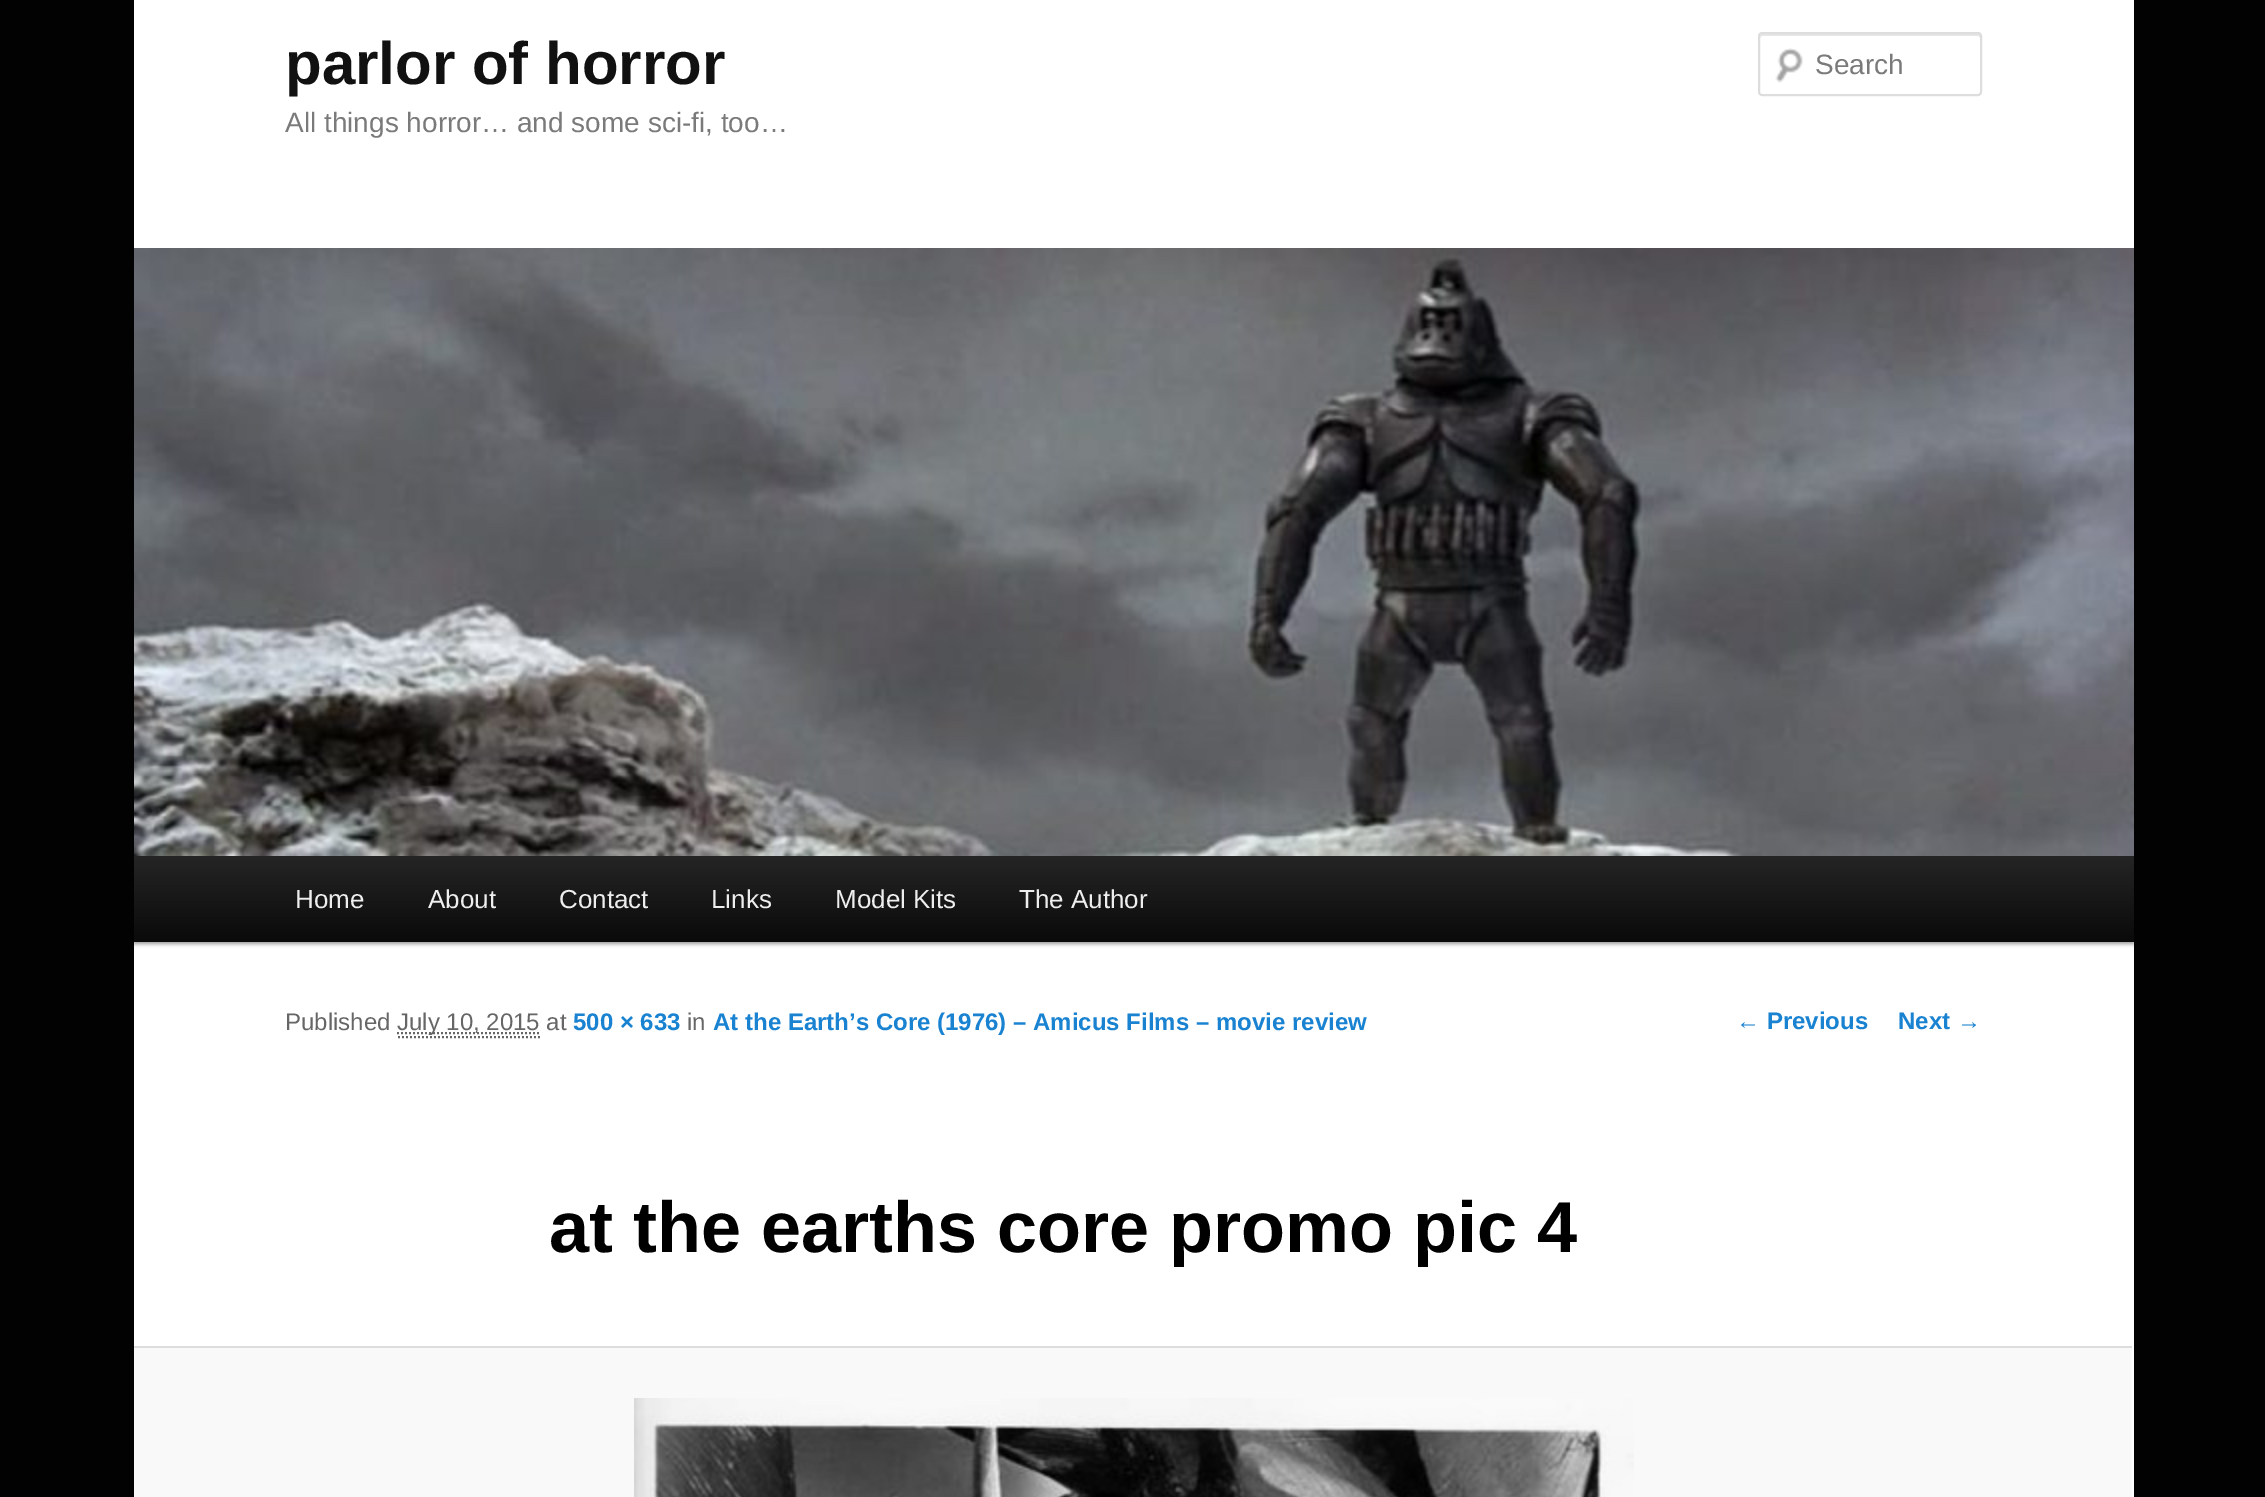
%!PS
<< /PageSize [2265 1497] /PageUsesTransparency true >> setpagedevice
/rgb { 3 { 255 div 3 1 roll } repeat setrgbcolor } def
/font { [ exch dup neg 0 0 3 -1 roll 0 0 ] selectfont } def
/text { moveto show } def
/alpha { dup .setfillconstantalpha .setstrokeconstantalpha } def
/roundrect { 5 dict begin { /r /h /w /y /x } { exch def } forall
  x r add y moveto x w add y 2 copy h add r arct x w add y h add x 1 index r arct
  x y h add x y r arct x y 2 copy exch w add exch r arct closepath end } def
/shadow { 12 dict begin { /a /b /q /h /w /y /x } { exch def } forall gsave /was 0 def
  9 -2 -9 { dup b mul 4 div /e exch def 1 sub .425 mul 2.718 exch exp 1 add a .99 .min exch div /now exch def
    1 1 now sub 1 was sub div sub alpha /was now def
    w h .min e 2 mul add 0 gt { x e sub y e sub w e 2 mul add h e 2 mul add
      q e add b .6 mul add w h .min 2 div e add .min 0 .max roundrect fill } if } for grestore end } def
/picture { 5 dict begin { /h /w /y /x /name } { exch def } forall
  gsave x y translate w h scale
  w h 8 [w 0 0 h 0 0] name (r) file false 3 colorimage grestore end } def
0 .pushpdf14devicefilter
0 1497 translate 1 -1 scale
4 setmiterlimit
3 2 2 rgb
0 0 2265 1497 rectfill
255 255 255 rgb
134 0 2000 1497 rectfill
(img_01.rgb) 1775 48 28 35 picture
230 230 230 rgb
1762 36 moveto 216 0 rlineto 1 0 2 1 2 2 rcurveto 0 -2 rlineto 0 -1 -1 -2 -2 -2 rcurveto -216 0 rlineto -1 0 -2 1 -2 2 rcurveto 0 2 rlineto 0 -1 1 -2 2 -2 rcurveto closepath fill
221 221 221 rgb
2 setlinewidth
1759 33 222 62 3 roundrect stroke
0 0 0 rgb
134 858 2000 86 0 2 0.4 shadow
(img_02.rgb) 134 248 2000 608 picture
gsave 134 856 moveto 2000 0 rlineto 0 86 rlineto -2000 0 rlineto closepath clip newpath
<< /ShadingType 2 /ColorSpace /DeviceRGB /Coords [1134 856 1134 942] /Extend [true true] /Function << /FunctionType 2 /Domain [0 1] /C0 [0.145 0.145 0.145] /C1 [0.039 0.039 0.039] /N 1 >> >> shfill grestore
102 102 102 rgb
[2 2] 0 setdash
398 1037 moveto 142 0 rlineto stroke
397 1033 moveto 143 0 rlineto stroke
249 249 249 rgb
134 1348 1998 149 rectfill
221 221 221 rgb
134 1346 1998 2 rectfill
(img_03.rgb) 634 1398 1000 99 picture
/LiberationSans-Bold 60 font
17 17 17 rgb
(parlor of horror) 285 84 text
/LiberationSans-Regular 28 font
122 122 122 rgb
(All things horror… and some sci-fi, too…) 285 132 text
(Search) 1815 74 text
/LiberationSans-Regular 26 font
238 238 238 rgb
(Home) 295 908 text
(About) 428 908 text
(Contact) 559 908 text
(Links) 711 908 text
(Model Kits) 835 908 text
(The Author) 1019 908 text
/LiberationSans-Regular 24 font
102 102 102 rgb
(Published) 285 1030 text
(July 10, 2015 at) 397 1030 text
/LiberationSans-Bold 24 font
25 130 209 rgb
(500 × 633) 573 1030 text
/LiberationSans-Regular 24 font
102 102 102 rgb
(in) 687 1030 text
/LiberationSans-Bold 24 font
25 130 209 rgb
(At the Earth’s Core \(1976\) – Amicus Films – movie review) 713 1030 text
/LiberationSans-Bold 72 font
0 0 0 rgb
(at the earths core promo pic 4) 549 1252 text
/LiberationSans-Bold 24 font
25 130 209 rgb
(← Previous) 1736 1029 text
(Next →) 1898 1029 text
.poppdf14devicefilter showpage
